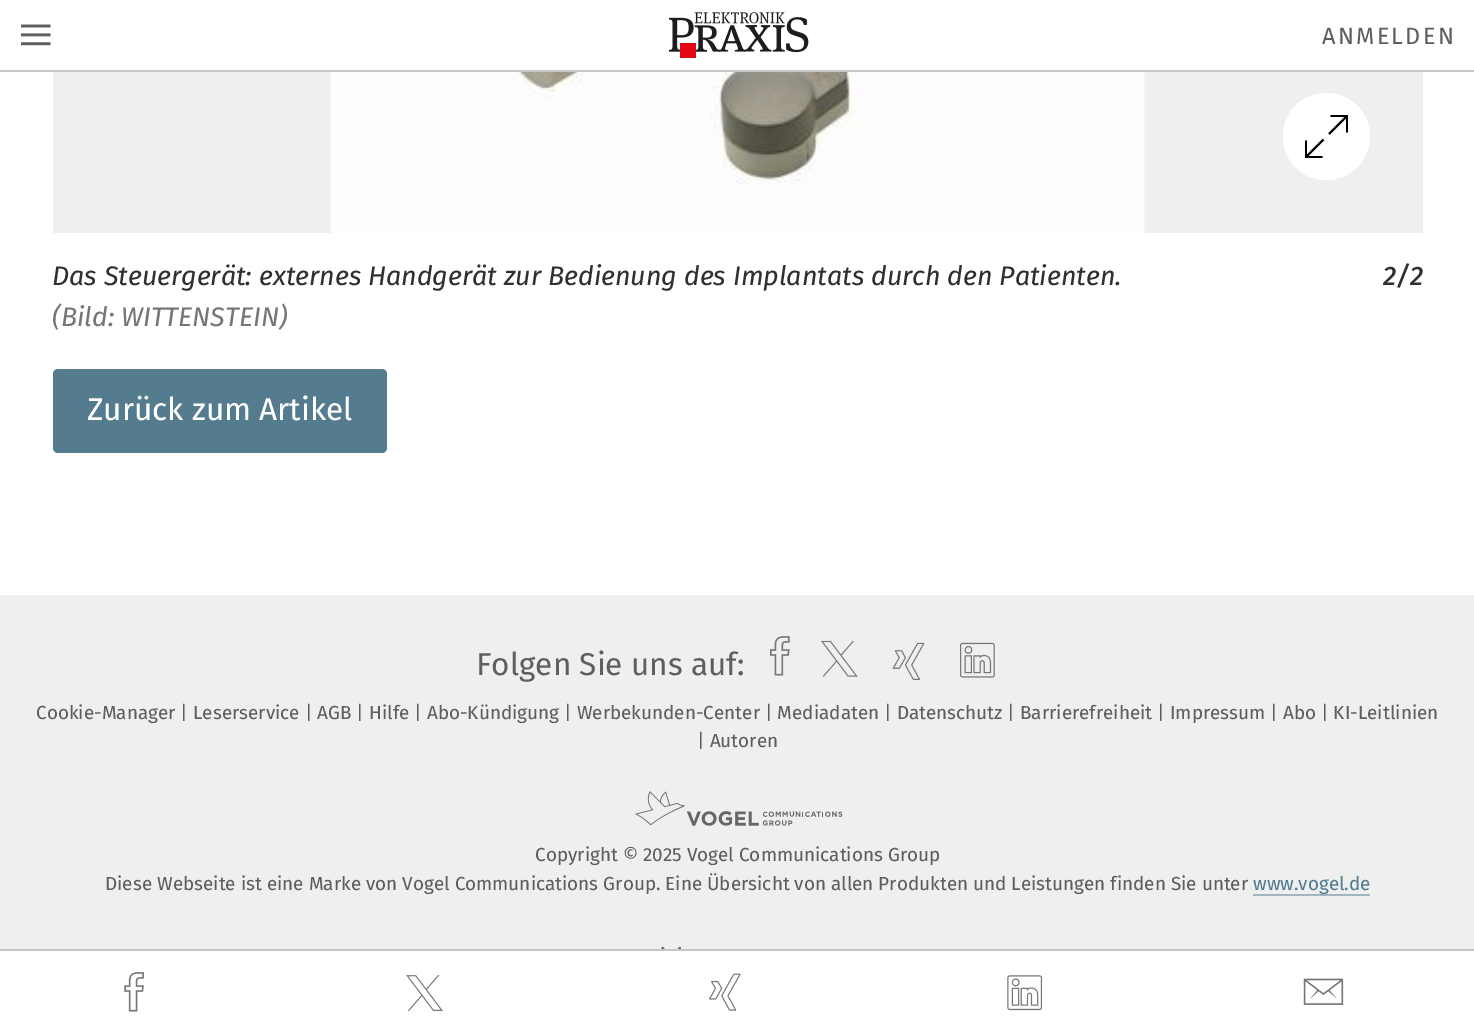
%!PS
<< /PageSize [1474 1036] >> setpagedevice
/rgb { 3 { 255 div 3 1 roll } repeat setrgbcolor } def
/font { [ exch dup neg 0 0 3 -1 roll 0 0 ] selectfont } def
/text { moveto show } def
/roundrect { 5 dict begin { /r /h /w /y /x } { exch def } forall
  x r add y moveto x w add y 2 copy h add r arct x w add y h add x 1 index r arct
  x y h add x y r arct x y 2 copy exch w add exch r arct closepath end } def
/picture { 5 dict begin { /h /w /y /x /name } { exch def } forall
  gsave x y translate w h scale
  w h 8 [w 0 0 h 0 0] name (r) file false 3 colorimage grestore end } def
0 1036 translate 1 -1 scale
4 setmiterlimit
255 255 255 rgb
0 0 1474 1036 rectfill
198 198 198 rgb
0 70 1474 2 rectfill
(img_01.rgb) 21 24 30 22 picture
(img_02.rgb) 669 12 140 46 picture
239 239 239 rgb
53 72 1370 161 rectfill
(img_03.rgb) 330 72 815 161 picture
255 255 255 rgb
1326 180 moveto 25 0 44 -19 44 -44 rcurveto 0 -24 -19 -43 -44 -43 rcurveto -24 0 -43 19 -43 43 rcurveto 0 25 19 44 43 44 rcurveto fill
0 0 0 rgb
1.8 setlinewidth
1347 132.5 moveto 0 -16.5 rlineto -16.5 0 rlineto 1306 140.5 moveto 0 16.5 rlineto 16.5 0 rlineto 1346.5 116.5 moveto -17.5 17.5 rlineto 1323.5 139.5 moveto -17.5 17.5 rlineto stroke
84 124 142 rgb
53 369 334 84 5 roundrect fill
239 239 239 rgb
0 595 1474 354 rectfill
94 94 94 rgb
680 946.5 moveto 1 1.5 rlineto -9.5 10.5 rlineto -10 -10.5 rlineto 1 -1.5 rlineto 9 9.5 rlineto closepath fill
255 255 255 rgb
664 951 15 8 rectfill
198 198 198 rgb
0 949 1474 2 rectfill
(img_04.rgb) 124 972 20 40 picture
(img_05.rgb) 406 975 37 36 picture
(img_06.rgb) 709 973 32 38 picture
(img_07.rgb) 1007 975 36 36 picture
(img_08.rgb) 1303 978 41 27 picture
(img_09.rgb) 770 636 20 40 picture
(img_10.rgb) 821 640 37 37 picture
(img_11.rgb) 892 642 33 38 picture
(img_12.rgb) 960 642 35 36 picture
(img_13.rgb) 635 791 208 35 picture
162 182 191 rgb
1253 894 117 2 rectfill
/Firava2-Regular 23.5 font
94 94 94 rgb
1322 44 moveto 2.25 0 (ANMELDEN) ashow
/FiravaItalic-Italic 26.8 font
48 48 48 rgb
(Das Steuergerät: externes Handgerät zur Bedienung des Implantats durch den Patienten.) 52 285 text
gsave
53 0 1370 338 rectclip
118 118 118 rgb
(\(Bild: WITTENSTEIN\)) 52 326 text
grestore
/FiravaItalic-MediumItalic 26.8 font
(2/2) 1383 285 text
/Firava-Regular 31.5 font
255 255 255 rgb
(Zurück zum Artikel) 87 420 text
/Firava2-Regular 31.5 font
94 94 94 rgb
(Folgen Sie uns auf:) 476 675 text
/Firava-Regular 18.9 font
(Cookie-Manager | Leserservice | AGB | Hilfe | Abo-Kündigung | Werbekunden-Center | Mediadaten | Datenschutz | Barrierefreiheit | Impressum | Abo | KI-Leitlinien) 36 719 text
(| Autoren) 697 747 text
(Copyright © 2025 Vogel Communications Group) 535 861 text
(Diese Webseite ist eine Marke von Vogel Communications Group. Eine Übersicht von allen Produkten und Leistungen finden Sie unter) 105 890 text
84 124 142 rgb
(www.vogel.de) 1253 890 text
showpage
